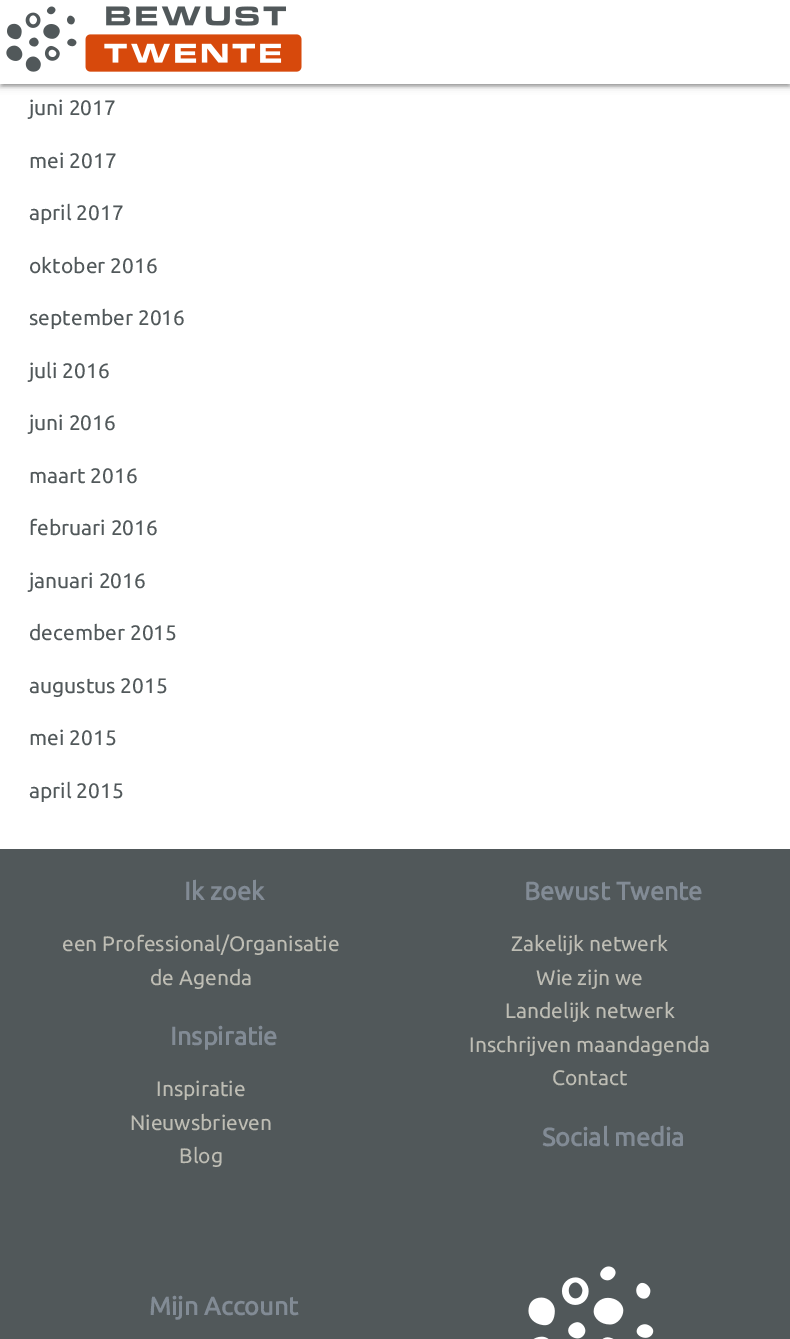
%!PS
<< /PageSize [790 1339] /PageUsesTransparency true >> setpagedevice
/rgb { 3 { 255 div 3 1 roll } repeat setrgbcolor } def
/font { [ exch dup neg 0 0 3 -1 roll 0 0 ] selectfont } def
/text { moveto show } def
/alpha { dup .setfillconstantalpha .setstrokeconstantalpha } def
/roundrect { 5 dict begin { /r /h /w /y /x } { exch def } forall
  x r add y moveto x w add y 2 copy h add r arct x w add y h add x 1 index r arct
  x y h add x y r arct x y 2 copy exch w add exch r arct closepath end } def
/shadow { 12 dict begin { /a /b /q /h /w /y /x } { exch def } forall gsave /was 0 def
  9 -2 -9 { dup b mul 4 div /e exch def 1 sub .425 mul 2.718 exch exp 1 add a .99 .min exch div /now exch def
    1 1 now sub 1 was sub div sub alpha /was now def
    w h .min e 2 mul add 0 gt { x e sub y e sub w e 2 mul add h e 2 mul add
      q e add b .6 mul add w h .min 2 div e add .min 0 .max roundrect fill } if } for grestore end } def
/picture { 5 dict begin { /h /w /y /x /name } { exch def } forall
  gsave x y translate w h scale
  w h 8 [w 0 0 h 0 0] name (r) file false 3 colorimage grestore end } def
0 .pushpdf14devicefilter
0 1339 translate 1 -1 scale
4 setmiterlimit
255 255 255 rgb
0 0 790 1339 rectfill
0 0 0 rgb
0 2 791 84 0 4 0.2 shadow
3 8 785 78 0 1 0.12 shadow
0 3 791 84 0 1.5 0.14 shadow
255 255 255 rgb
0 0 790 84 rectfill
(img_01.rgb) 6 6 296 66 picture
81 88 90 rgb
0 849 790 490 rectfill
(img_02.rgb) 528 1266 126 73 picture
/Ubuntu-Regular 21 font
(juni 2017) 29 115 text
(mei 2017) 29 168 text
(april 2017) 29 220 text
(oktober 2016) 29 273 text
(september 2016) 29 325 text
(juli 2016) 29 378 text
(juni 2016) 29 430 text
(maart 2016) 29 483 text
(februari 2016) 29 535 text
(januari 2016) 29 588 text
(december 2015) 29 640 text
(augustus 2015) 29 693 text
(mei 2015) 29 745 text
(april 2015) 29 798 text
/Ubuntu-Bold 25.25 font
130 139 149 rgb
(Ik zoek) 184 900 text
/Ubuntu-Regular 21 font
190 189 180 rgb
(een Professional/Organisatie) 62 951 text
(de Agenda) 150 985 text
/Ubuntu-Bold 25.25 font
130 139 149 rgb
(Inspiratie) 170 1045 text
/Ubuntu-Regular 21 font
190 189 180 rgb
(Inspiratie) 156 1096 text
(Nieuwsbrieven) 130 1130 text
(Blog) 179 1163 text
/Ubuntu-Bold 25.25 font
130 139 149 rgb
(Bewust Twente) 524 900 text
/Ubuntu-Regular 21 font
190 189 180 rgb
(Zakelijk netwerk) 511 951 text
(Wie zijn we) 536 985 text
(Landelijk netwerk) 505 1018 text
(Inschrijven maandagenda) 469 1052 text
(Contact) 552 1085 text
/Ubuntu-Bold 25.25 font
130 139 149 rgb
(Social media) 542 1146 text
(Mijn Account) 149 1315 text
.poppdf14devicefilter showpage
